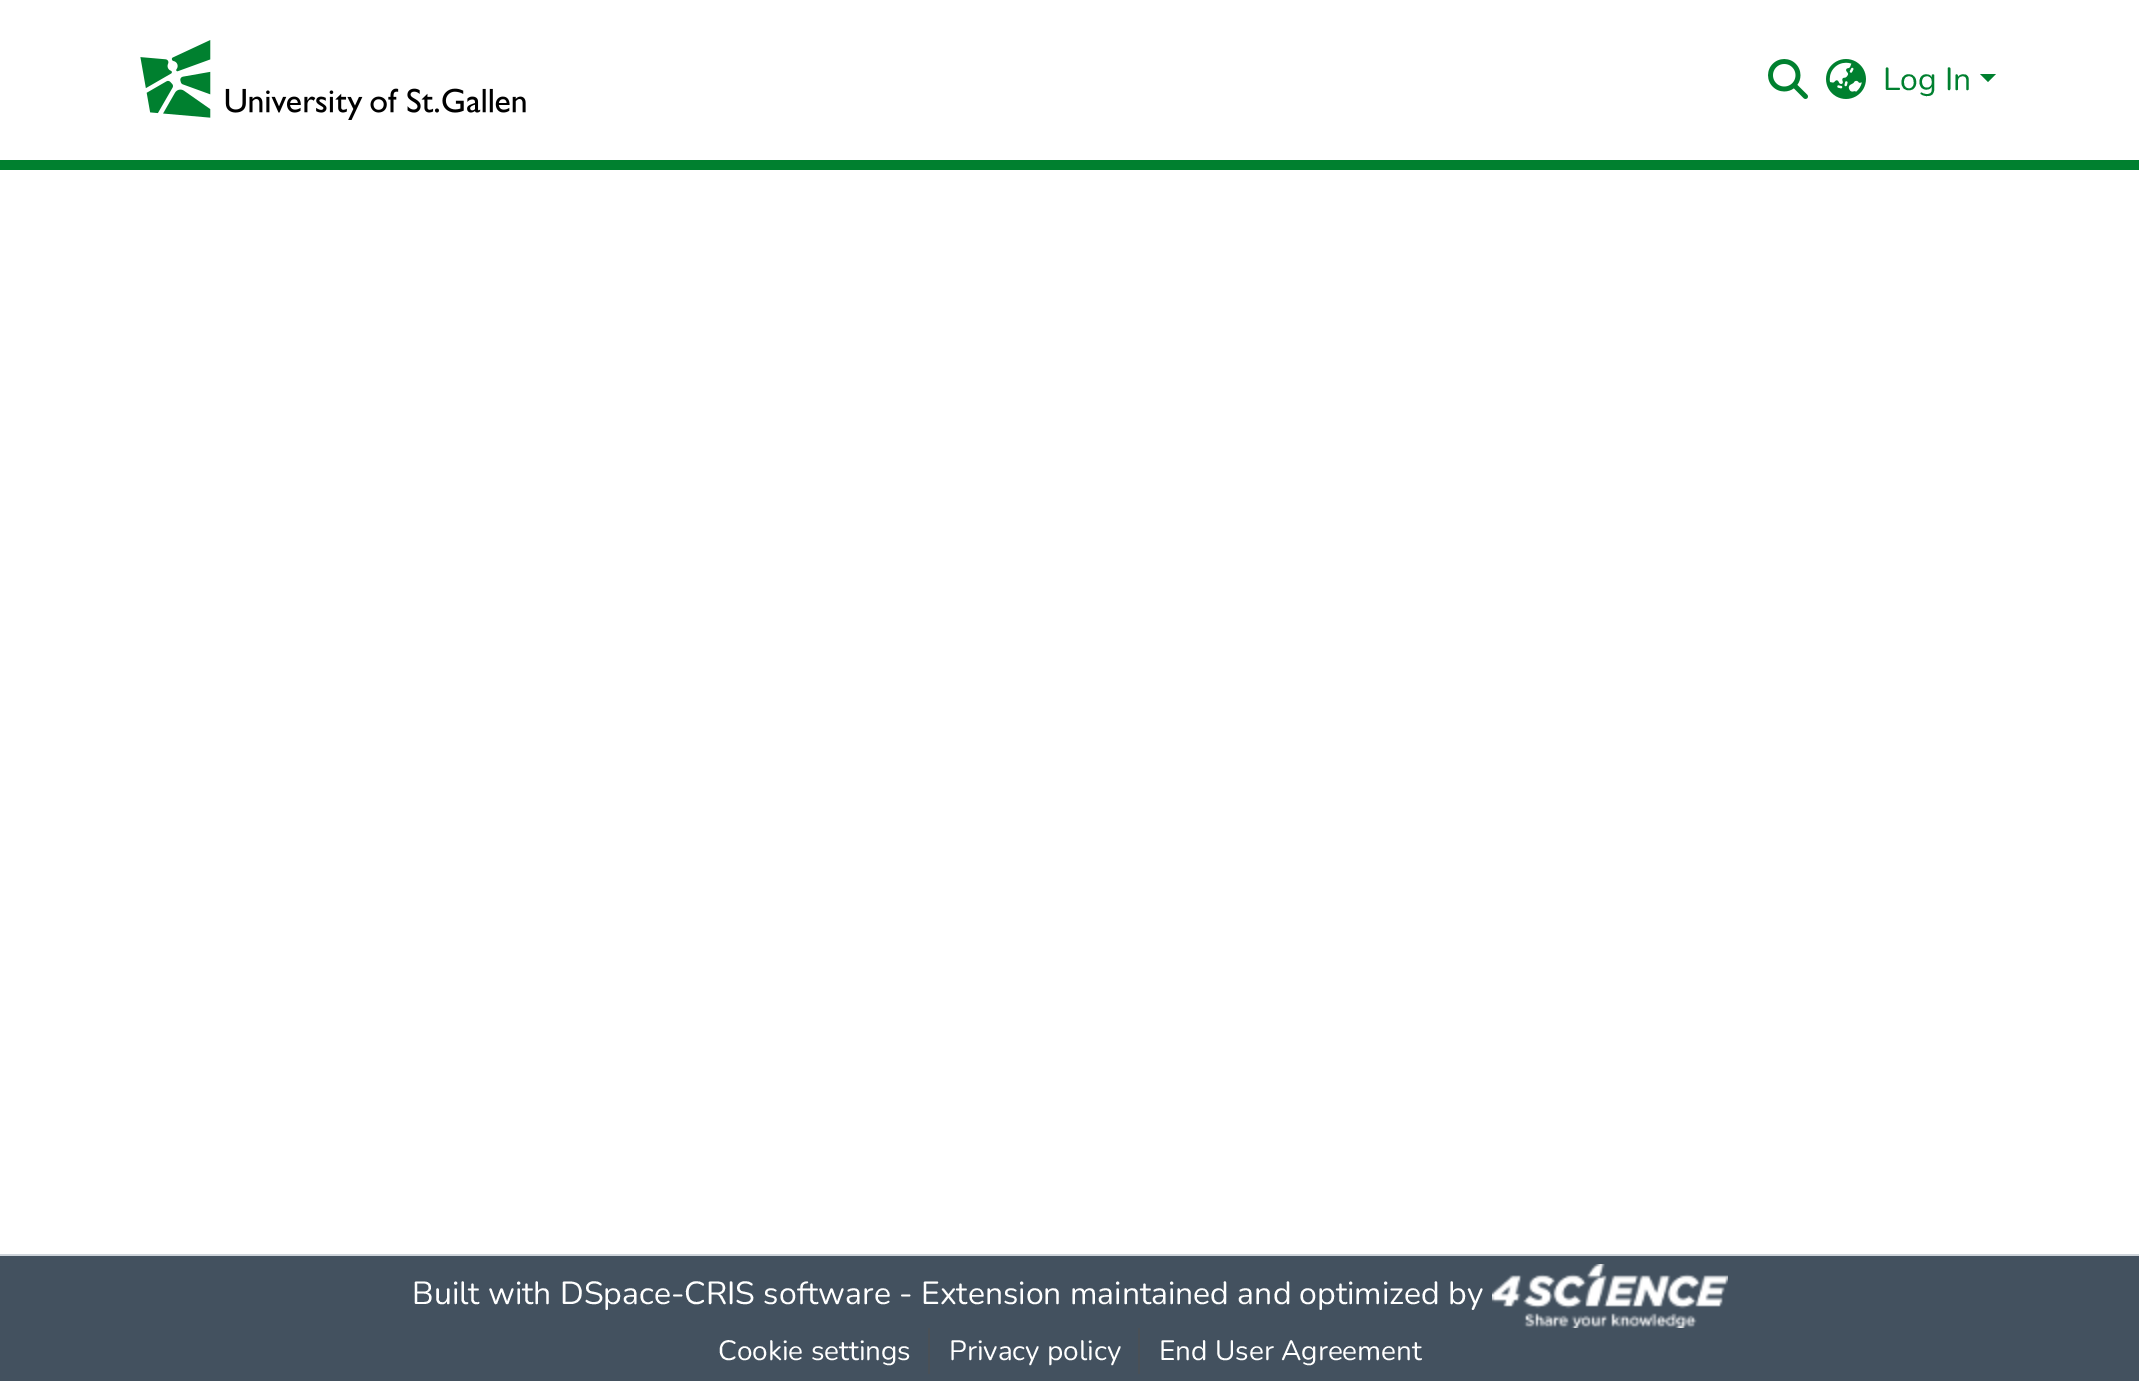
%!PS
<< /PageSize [2139 1381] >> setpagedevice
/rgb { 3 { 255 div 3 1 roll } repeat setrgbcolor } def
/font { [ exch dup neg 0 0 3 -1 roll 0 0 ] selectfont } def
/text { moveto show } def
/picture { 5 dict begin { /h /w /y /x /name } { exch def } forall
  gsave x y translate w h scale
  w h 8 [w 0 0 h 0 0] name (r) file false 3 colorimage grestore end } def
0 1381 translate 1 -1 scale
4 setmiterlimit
255 255 255 rgb
0 0 2139 1381 rectfill
0 128 47 rgb
0 160 2139 10 rectfill
(img_01.rgb) 140 40 386 80 picture
(img_02.rgb) 1768 59 40 40 picture
(img_03.rgb) 1826 59 40 40 picture
1980 74 moveto 16 0 rlineto -8 8 rlineto closepath fill
67 81 95 rgb
0 1256 2139 125 rectfill
206 212 218 rgb
0 1254 2139 2 rectfill
(img_04.rgb) 1492 1264 236 64 picture
73 80 87 rgb
928 1328 2 46 rectfill
1138 1328 2 46 rectfill
/Nunito-Regular 32 font
0 128 47 rgb
(Log In) 1883 90 text
255 255 255 rgb
(Built with DSpace-CRIS software - Extension maintained and optimized by) 412 1304 text
/Nunito-Regular 28 font
(Cookie settings) 718 1360 text
(Privacy policy) 949 1360 text
(End User Agreement) 1159 1360 text
showpage
